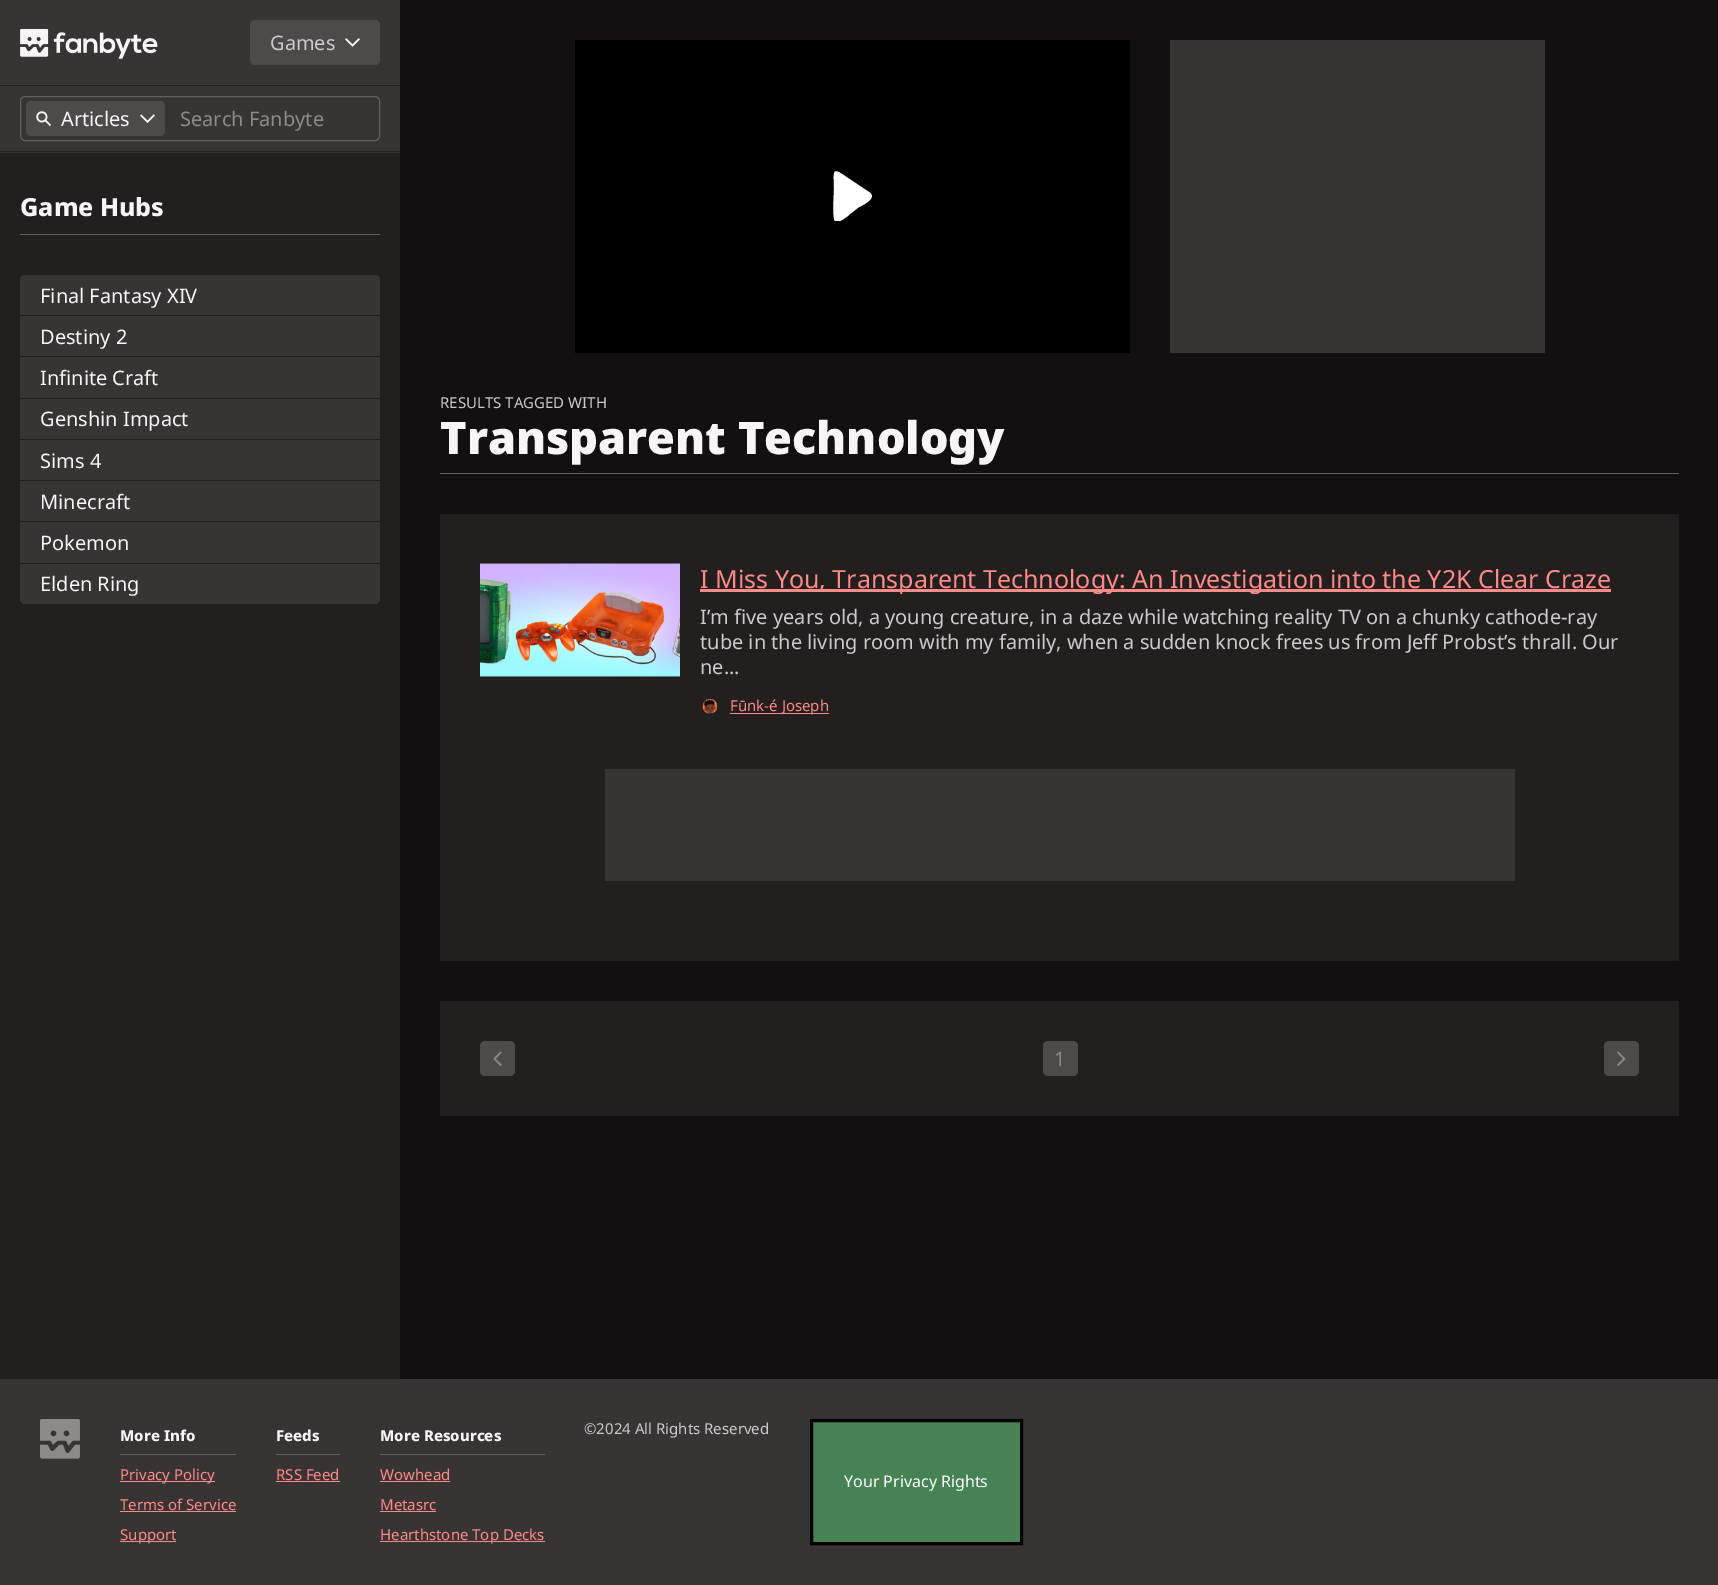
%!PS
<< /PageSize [1718 1585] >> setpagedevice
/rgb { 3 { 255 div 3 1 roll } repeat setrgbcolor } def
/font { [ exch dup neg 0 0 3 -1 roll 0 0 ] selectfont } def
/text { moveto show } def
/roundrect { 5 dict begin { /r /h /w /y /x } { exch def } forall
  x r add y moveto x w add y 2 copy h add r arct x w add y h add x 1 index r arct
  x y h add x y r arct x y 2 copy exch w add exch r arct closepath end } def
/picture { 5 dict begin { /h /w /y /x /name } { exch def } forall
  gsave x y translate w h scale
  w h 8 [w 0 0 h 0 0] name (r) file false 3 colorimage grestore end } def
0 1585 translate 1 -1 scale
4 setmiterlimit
18 16 16 rgb
0 0 1718 1585 rectfill
35 31 31 rgb
0 153 400 1226 rectfill
56 52 52 rgb
0 0 400 85 rectfill
35 31 31 rgb
0 85 400 1 rectfill
(img_01.rgb) 20 29 138 30 picture
78 74 74 rgb
250 20 130 45 5 roundrect fill
(img_02.rgb) 345 38 15 9 picture
56 52 52 rgb
0 86 400 67 rectfill
35 31 31 rgb
0 151 400 1 rectfill
99 95 95 rgb
20.5 96.5 359 44 4.5 roundrect stroke
78 74 74 rgb
26 101 139 35 5 roundrect fill
(img_03.rgb) 36 111 15 16 picture
(img_04.rgb) 140 114 15 9 picture
99 95 95 rgb
20 234 360 1 rectfill
56 52 52 rgb
25 275 moveto 350 0 rlineto 3 0 5 2 5 5 rcurveto 0 36 rlineto -360 0 rlineto 0 -36 rlineto 0 -3 2 -5 5 -5 rcurveto closepath fill
35 31 31 rgb
20 315 360 1 rectfill
56 52 52 rgb
20 316 360 82 rectfill
35 31 31 rgb
20 356 360 1 rectfill
56 52 52 rgb
20 399 360 40 rectfill
20 440 360 40 rectfill
20 481 360 82 rectfill
35 31 31 rgb
20 521 360 1 rectfill
56 52 52 rgb
20 564 moveto 360 0 rlineto 0 35 rlineto 0 3 -2 5 -5 5 rcurveto -350 0 rlineto -3 0 -5 -2 -5 -5 rcurveto closepath fill
0 0 0 rgb
575 40 555 313 rectfill
gsave
828 171 50 50 rectclip
255 255 255 rgb
869 192 moveto -24 -16 rlineto -14 -10 -11 -3 -11 13 rcurveto 0 5 -2 29 1 32 rcurveto 4 3 14 -6 15 -7 rcurveto 9 -7 rlineto 4 -2 19 -9 10 -15 rcurveto closepath fill
grestore
56 52 52 rgb
1170 40 375 313 rectfill
99 95 95 rgb
440 473 1239 1 rectfill
35 31 31 rgb
440 514 1239 447 rectfill
(img_05.rgb) 480 563 200 114 picture
(img_06.rgb) 480 563 200 114 picture
255 138 138 rgb
700 589 911 3 rectfill
(img_07.rgb) 702 698 16 16 picture
730 713 99 1 rectfill
56 52 52 rgb
605 769 910 112 rectfill
35 31 31 rgb
440 1001 1239 115 rectfill
78 74 74 rgb
480 1041 35 35 5 roundrect fill
(img_08.rgb) 493 1051 9 15 picture
1043 1041 35 35 5 roundrect fill
1604 1041 35 35 5 roundrect fill
(img_09.rgb) 1617 1051 9 15 picture
56 52 52 rgb
0 1379 1718 206 rectfill
(img_10.rgb) 40 1419 40 40 picture
99 95 95 rgb
120 1454 116 1 rectfill
255 138 138 rgb
120 1481 95 1 rectfill
120 1511 116 1 rectfill
120 1541 56 1 rectfill
99 95 95 rgb
276 1454 64 1 rectfill
255 138 138 rgb
276 1481 64 1 rectfill
99 95 95 rgb
380 1454 165 1 rectfill
255 138 138 rgb
380 1481 70 1 rectfill
380 1511 56 1 rectfill
380 1541 165 1 rectfill
70 130 84 rgb
811.5 1420.5 moveto 210 0 rlineto 0 123 rlineto -210 0 rlineto closepath gsave fill grestore
0 0 0 rgb
3 setlinewidth
stroke
/NotoSans-Regular 20 font
206 201 202 rgb
(Games) 270 50 text
249 244 245 rgb
(Articles) 61 126 text
142 138 138 rgb
(Search Fanbyte) 180 126 text
/NotoSans-ExtraBold 25 font
249 244 245 rgb
(Game Hubs) 20 216 text
/NotoSans-Regular 20 font
(Final Fantasy XIV) 40 303 text
(Destiny 2) 40 344 text
(Infinite Craft) 40 385 text
(Genshin Impact) 40 426 text
(Sims 4) 40 468 text
(Minecraft) 40 509 text
(Pokemon) 40 550 text
(Elden Ring) 40 591 text
/NotoSans-Regular 15 font
206 201 202 rgb
(RESULTS TAGGED WITH) 440 408 text
/NotoSans-Black 45 font
249 244 245 rgb
(Transparent Technology) 440 454 text
/NotoSans-Regular 25 font
255 138 138 rgb
(I Miss You, Transparent Technology: An Investigation into the Y2K Clear Craze) 700 588 text
/NotoSans-Regular 20 font
206 201 202 rgb
(I’m five years old, a young creature, in a daze while watching reality TV on a chunky cathode-ray) 700 624 text
(tube in the living room with my family, when a sudden knock frees us from Jeff Probst’s thrall. Our) 700 649 text
(ne...) 700 674 text
/NotoSans-Regular 15 font
255 138 138 rgb
(Fūnk-é Joseph) 730 711 text
/NotoSans-Regular 20 font
142 138 138 rgb
(1) 1054 1066 text
/NotoSans-ExtraBold 15 font
249 244 245 rgb
(More Info) 120 1441 text
/NotoSans-Regular 15 font
255 138 138 rgb
(Privacy Policy) 120 1480 text
(Terms of Service) 120 1510 text
(Support) 120 1540 text
/NotoSans-ExtraBold 15 font
249 244 245 rgb
(Feeds) 276 1441 text
/NotoSans-Regular 15 font
255 138 138 rgb
(RSS Feed) 276 1480 text
/NotoSans-ExtraBold 15 font
249 244 245 rgb
(More Resources) 380 1441 text
/NotoSans-Regular 15 font
255 138 138 rgb
(Wowhead) 380 1480 text
(Metasrc) 380 1510 text
(Hearthstone Top Decks) 380 1540 text
206 201 202 rgb
(©2024 All Rights Reserved) 584 1434 text
/NotoSans-Regular 16 font
255 255 255 rgb
(Your Privacy Rights) 844 1487 text
showpage
